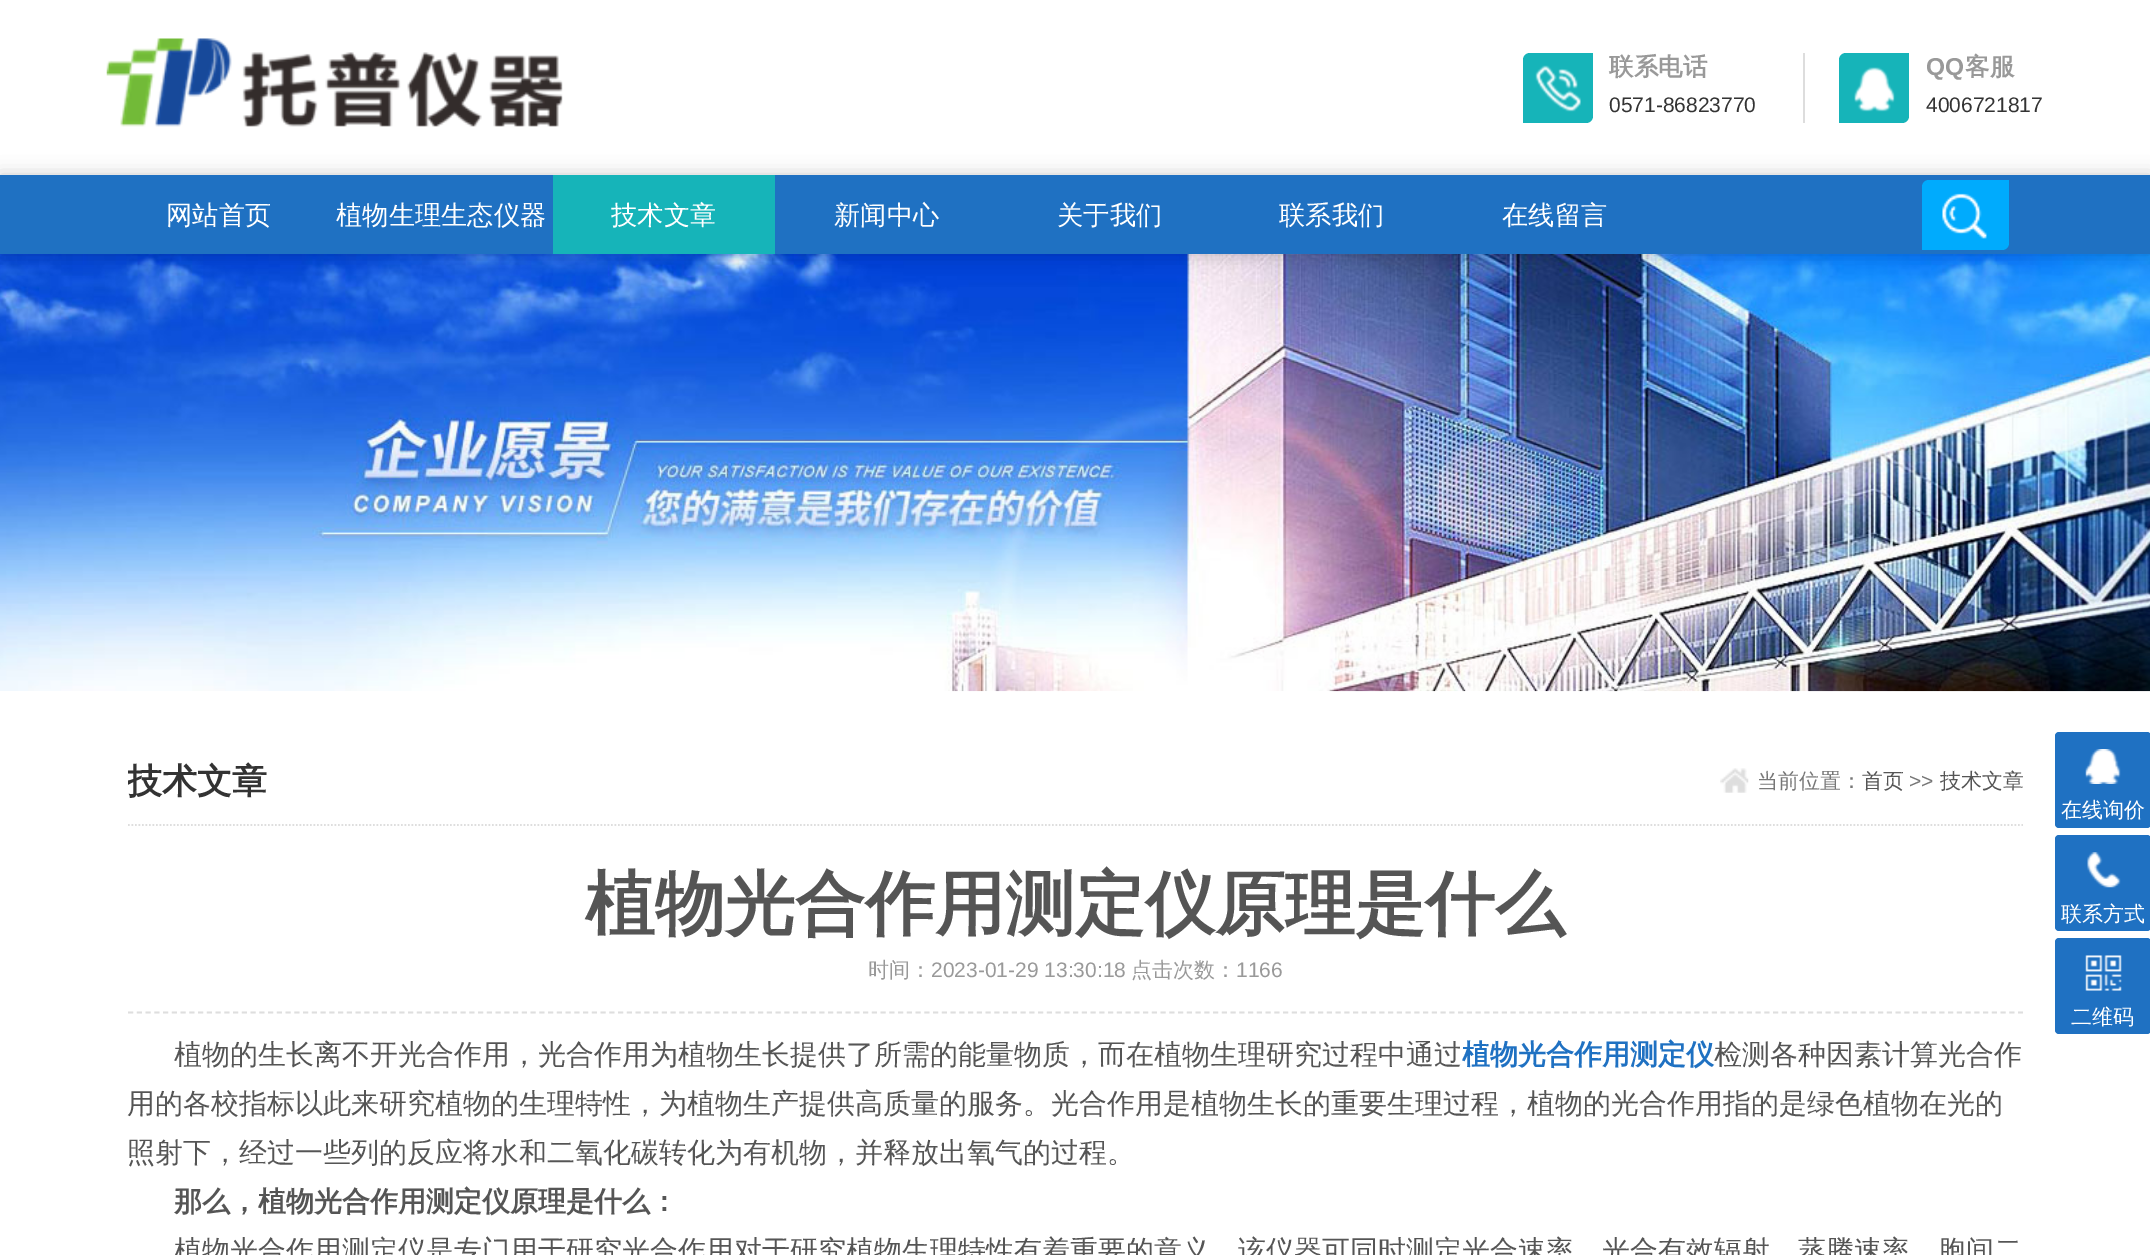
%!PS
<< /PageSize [2150 1255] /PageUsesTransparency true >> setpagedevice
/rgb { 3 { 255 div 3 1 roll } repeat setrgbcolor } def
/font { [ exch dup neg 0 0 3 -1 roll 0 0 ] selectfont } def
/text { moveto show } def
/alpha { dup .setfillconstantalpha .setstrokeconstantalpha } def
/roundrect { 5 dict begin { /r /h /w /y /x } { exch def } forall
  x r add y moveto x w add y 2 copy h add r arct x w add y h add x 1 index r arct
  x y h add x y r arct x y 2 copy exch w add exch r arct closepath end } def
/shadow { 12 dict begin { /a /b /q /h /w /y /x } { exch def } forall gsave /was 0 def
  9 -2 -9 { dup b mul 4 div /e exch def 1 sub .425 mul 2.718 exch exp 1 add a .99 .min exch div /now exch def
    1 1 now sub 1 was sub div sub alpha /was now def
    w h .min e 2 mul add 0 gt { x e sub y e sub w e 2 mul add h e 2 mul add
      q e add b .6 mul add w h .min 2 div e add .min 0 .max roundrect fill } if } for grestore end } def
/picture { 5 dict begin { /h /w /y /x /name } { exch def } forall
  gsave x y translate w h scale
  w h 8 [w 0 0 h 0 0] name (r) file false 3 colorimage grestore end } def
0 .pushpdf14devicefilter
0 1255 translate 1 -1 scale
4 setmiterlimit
255 255 255 rgb
0 0 2150 1255 rectfill
(img_01.rgb) 106 38 457 89 picture
221 221 221 rgb
1803 53 2 70 rectfill
22 180 185 rgb
1530 53 moveto 63 0 rlineto 0 63 rlineto 0 4 -3 7 -7 7 rcurveto -63 0 rlineto 0 -63 rlineto 0 -4 3 -7 7 -7 rcurveto closepath fill
(img_02.rgb) 1535 65 46 47 picture
1846 53 moveto 63 0 rlineto 0 63 rlineto 0 4 -3 7 -7 7 rcurveto -63 0 rlineto 0 -63 rlineto 0 -4 3 -7 7 -7 rcurveto closepath fill
(img_03.rgb) 1854 67 41 45 picture
(img_05.rgb) 0 254 2150 438 picture
0 0 0 rgb
0 175 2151 79 0 9 0.2 shadow
31 113 194 rgb
0 175 2150 79 rectfill
22 180 185 rgb
553 175 222 79 rectfill
0 171 253 rgb
1929 180 moveto 80 0 rlineto 0 63 rlineto 0 4 -3 7 -7 7 rcurveto -80 0 rlineto 0 -63 rlineto 0 -4 3 -7 7 -7 rcurveto closepath fill
(img_04.rgb) 1942 193 45 46 picture
222 222 222 rgb
1.8 setlinewidth
[1.75 1.75] 0 setdash
128 825 moveto 1895 0 rlineto stroke
(img_06.rgb) 1720 768 29 25 picture
[5.25 3.5] 0 setdash
128 1012.5 moveto 1895 0 rlineto stroke
31 113 194 rgb
2055 732 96 96 4 roundrect fill
(img_07.rgb) 2085 749 36 35 picture
2055 835 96 96 4 roundrect fill
(img_08.rgb) 2087 852 34 36 picture
2055 938 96 96 4 roundrect fill
(img_09.rgb) 2085 955 37 36 picture
/WenQuanYiZenHei-Bold 24.5 font
153 153 153 rgb
(联系电话) 1609 75 text
/LiberationSans-Regular 21 font
51 51 51 rgb
(0571-86823770) 1609 112 text
/LiberationSans-Bold 24.5 font
153 153 153 rgb
(QQ) 1926 75 text
/WenQuanYiZenHei-Bold 24.5 font
(客服) 1965 75 text
/LiberationSans-Regular 21 font
51 51 51 rgb
(4006721817) 1926 112 text
/WenQuanYiZenHei-Medium 26.25 font
255 255 255 rgb
(网站首页) 166 224 text
(植物生理生态仪器) 336 224 text
(技术文章) 611 224 text
(新闻中心) 834 224 text
(关于我们) 1057 224 text
(联系我们) 1279 224 text
(在线留言) 1502 224 text
gsave
128 746 1895 78 rectclip
/WenQuanYiZenHei-Bold 35 font
51 51 51 rgb
(技术文章) 127 793 text
grestore
/WenQuanYiZenHei-Medium 21 font
119 119 119 rgb
(当前位置：) 1757 788 text
85 85 85 rgb
(首页) 1862 788 text
/LiberationSans-Regular 21 font
119 119 119 rgb
(>>) 1909 788 text
/WenQuanYiZenHei-Medium 21 font
85 85 85 rgb
(技术文章) 1940 788 text
/WenQuanYiZenHei-Bold 70 font
(植物光合作用测定仪原理是什么) 585 928 text
/WenQuanYiZenHei-Medium 21 font
153 153 153 rgb
(时间：) 868 977 text
/LiberationSans-Regular 21 font
(2023-01-29 13:30:18) 931 977 text
/WenQuanYiZenHei-Medium 21 font
(点击次数：) 1131 977 text
/LiberationSans-Regular 21 font
(1166) 1236 977 text
/WenQuanYiZenHei-Medium 28 font
85 85 85 rgb
(植物的生长离不开光合作用，光合作用为植物生长提供了所需的能量物质，而在植物生理研究过程中通过) 174 1064 text
/WenQuanYiZenHei-Bold 28 font
31 113 194 rgb
(植物光合作用测定仪) 1462 1064 text
/WenQuanYiZenHei-Medium 28 font
85 85 85 rgb
(检测各种因素计算光合作) 1714 1064 text
(用的各校指标以此来研究植物的生理特性，为植物生产提供高质量的服务。光合作用是植物生长的重要生理过程，植物的光合作用指的是绿色植物在光的) 127 1113 text
(照射下，经过一些列的反应将水和二氧化碳转化为有机物，并释放出氧气的过程。) 127 1162 text
/WenQuanYiZenHei-Bold 28 font
(那么，植物光合作用测定仪原理是什么：) 174 1211 text
/WenQuanYiZenHei-Medium 28 font
(植物光合作用测定仪是专门用于研究光合作用对于研究植物生理特性有着重要的意义，该仪器可同时测定光合速率、光合有效辐射、蒸腾速率、胞间二) 174 1260 text
/WenQuanYiZenHei-Medium 21 font
255 255 255 rgb
(在线询价) 2061 817 text
(联系方式) 2061 921 text
(二维码) 2071 1024 text
.poppdf14devicefilter showpage
